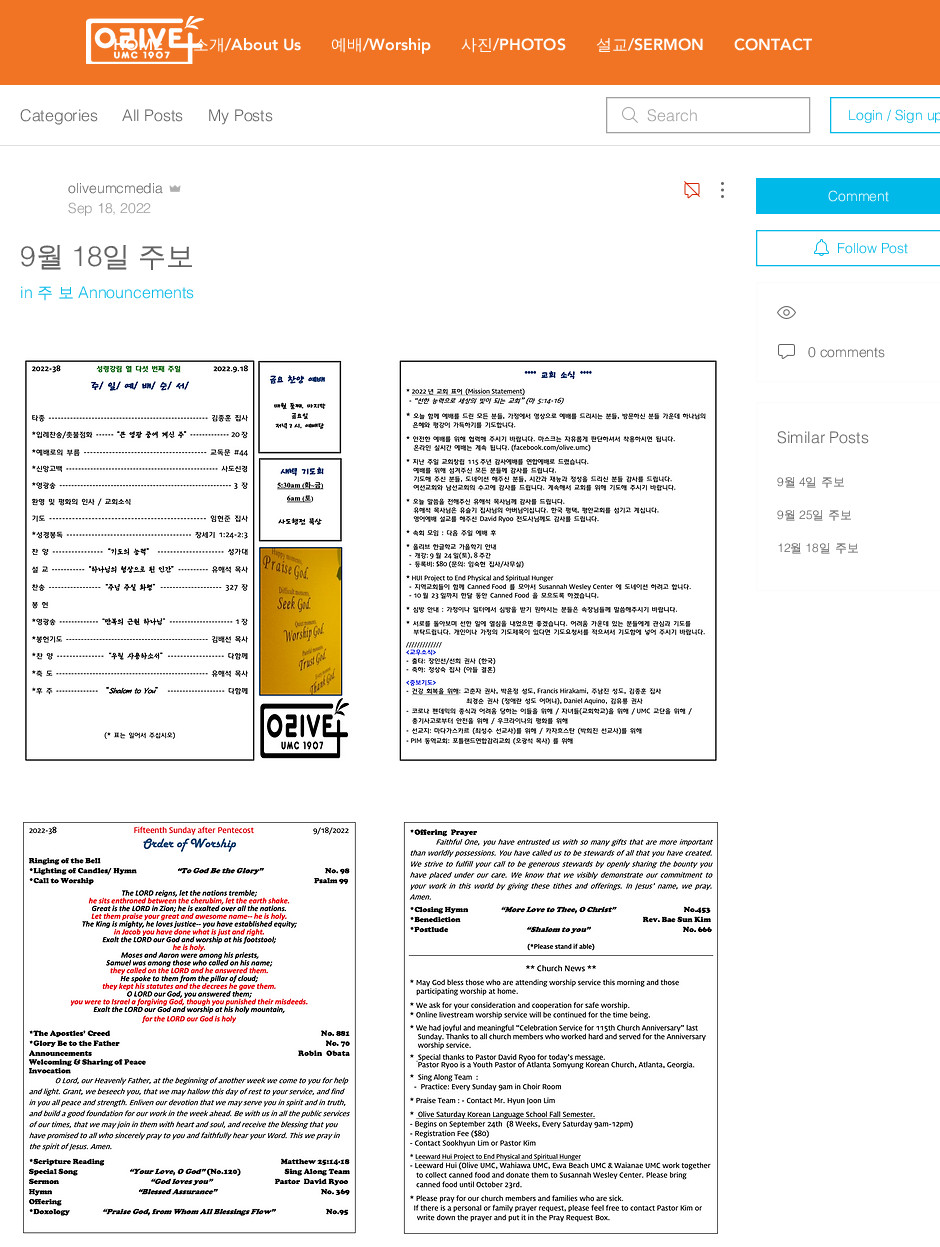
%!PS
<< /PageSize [940 1247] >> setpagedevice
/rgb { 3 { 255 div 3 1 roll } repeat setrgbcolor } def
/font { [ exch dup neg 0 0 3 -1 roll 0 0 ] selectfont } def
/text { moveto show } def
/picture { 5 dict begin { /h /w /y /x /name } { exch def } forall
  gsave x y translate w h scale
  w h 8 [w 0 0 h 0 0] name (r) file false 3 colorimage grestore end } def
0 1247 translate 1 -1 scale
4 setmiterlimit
241 116 36 rgb
0 0 940 1247 rectfill
255 255 255 rgb
0 85 940 1162 rectfill
223 223 223 rgb
0 145 940 1 rectfill
(img_02.rgb) 622 107 16 16 picture
160 160 160 rgb
606.5 97.5 203 35 rectstroke
0 185 232 rgb
830.5 97.5 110 35 rectstroke
(img_03.rgb) 169 185 12 7 picture
(img_04.rgb) 684 181 16 18 picture
(img_05.rgb) 721 182 3 16 picture
(img_06.rgb) 25 358 692 403 picture
(img_07.rgb) 23 822 696 412 picture
756 178 184 36 rectfill
756.5 230.5 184 35 rectstroke
(img_08.rgb) 814 239 15 17 picture
252 252 252 rgb
756.5 282.5 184 99 rectstroke
(img_09.rgb) 777 306 19 13 picture
(img_10.rgb) 778 344 17 15 picture
756.5 402.5 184 188 rectstroke
/WenQuanYiZenHei-Medium 16 font
255 255 255 rgb
(소개) 193 50 text
(img_01.rgb) 86 16 118 48 picture
/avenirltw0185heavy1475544-Black 16 font
(/About Us) 225 50 text
/WenQuanYiZenHei-Medium 16 font
(예배) 331 50 text
/avenirltw0185heavy1475544-Black 16 font
(/Worship) 363 50 text
/WenQuanYiZenHei-Medium 16 font
(사진) 461 50 text
/avenirltw0185heavy1475544-Black 16 font
(/PHOTOS) 493 50 text
/WenQuanYiZenHei-Medium 16 font
(설교) 596 50 text
/avenirltw0185heavy1475544-Black 16 font
(/SERMON) 628 50 text
(CONTACT) 734 50 text
/helvetica-Light 16 font
96 96 96 rgb
(Categories) 20 121 text
(All Posts) 122 121 text
(My Posts) 208 121 text
160 160 160 rgb
(Search) 647 121 text
/helvetica-Light 14 font
0 185 232 rgb
(Login / Sign up) 848 120 text
96 96 96 rgb
(oliveumcmedia) 68 193 text
153 153 153 rgb
(Sep 18, 2022) 68 213 text
/helvetica-Light 28 font
96 96 96 rgb
(9) 20 266 text
/WenQuanYiZenHei-Medium 28 font
(월) 36 266 text
/helvetica-Light 28 font
(18) 71 266 text
/WenQuanYiZenHei-Medium 28 font
(일 주보) 102 266 text
/helvetica-Light 16 font
0 185 232 rgb
(in) 20 298 text
/WenQuanYiZenHei-Medium 16 font
(주 보) 37 298 text
/helvetica-Light 16 font
(Announcements) 78 298 text
/helvetica-Light 14 font
255 255 255 rgb
(Comment) 828 201 text
0 185 232 rgb
(Follow Post) 837 253 text
96 96 96 rgb
(0 comments) 808 357 text
/helvetica-Light 16 font
(Similar Posts) 777 443 text
/helvetica-Light 12 font
(9) 777 486 text
/WenQuanYiZenHei-Medium 12 font
(월) 784 486 text
/helvetica-Light 12 font
(4) 799 486 text
/WenQuanYiZenHei-Medium 12 font
(일 주보) 805 486 text
/helvetica-Light 12 font
(9) 777 519 text
/WenQuanYiZenHei-Medium 12 font
(월) 784 519 text
/helvetica-Light 12 font
(25) 799 519 text
/WenQuanYiZenHei-Medium 12 font
(일 주보) 812 519 text
/helvetica-Light 12 font
(12) 777 552 text
/WenQuanYiZenHei-Medium 12 font
(월) 790 552 text
/helvetica-Light 12 font
(18) 805 552 text
/WenQuanYiZenHei-Medium 12 font
(일 주보) 819 552 text
showpage
